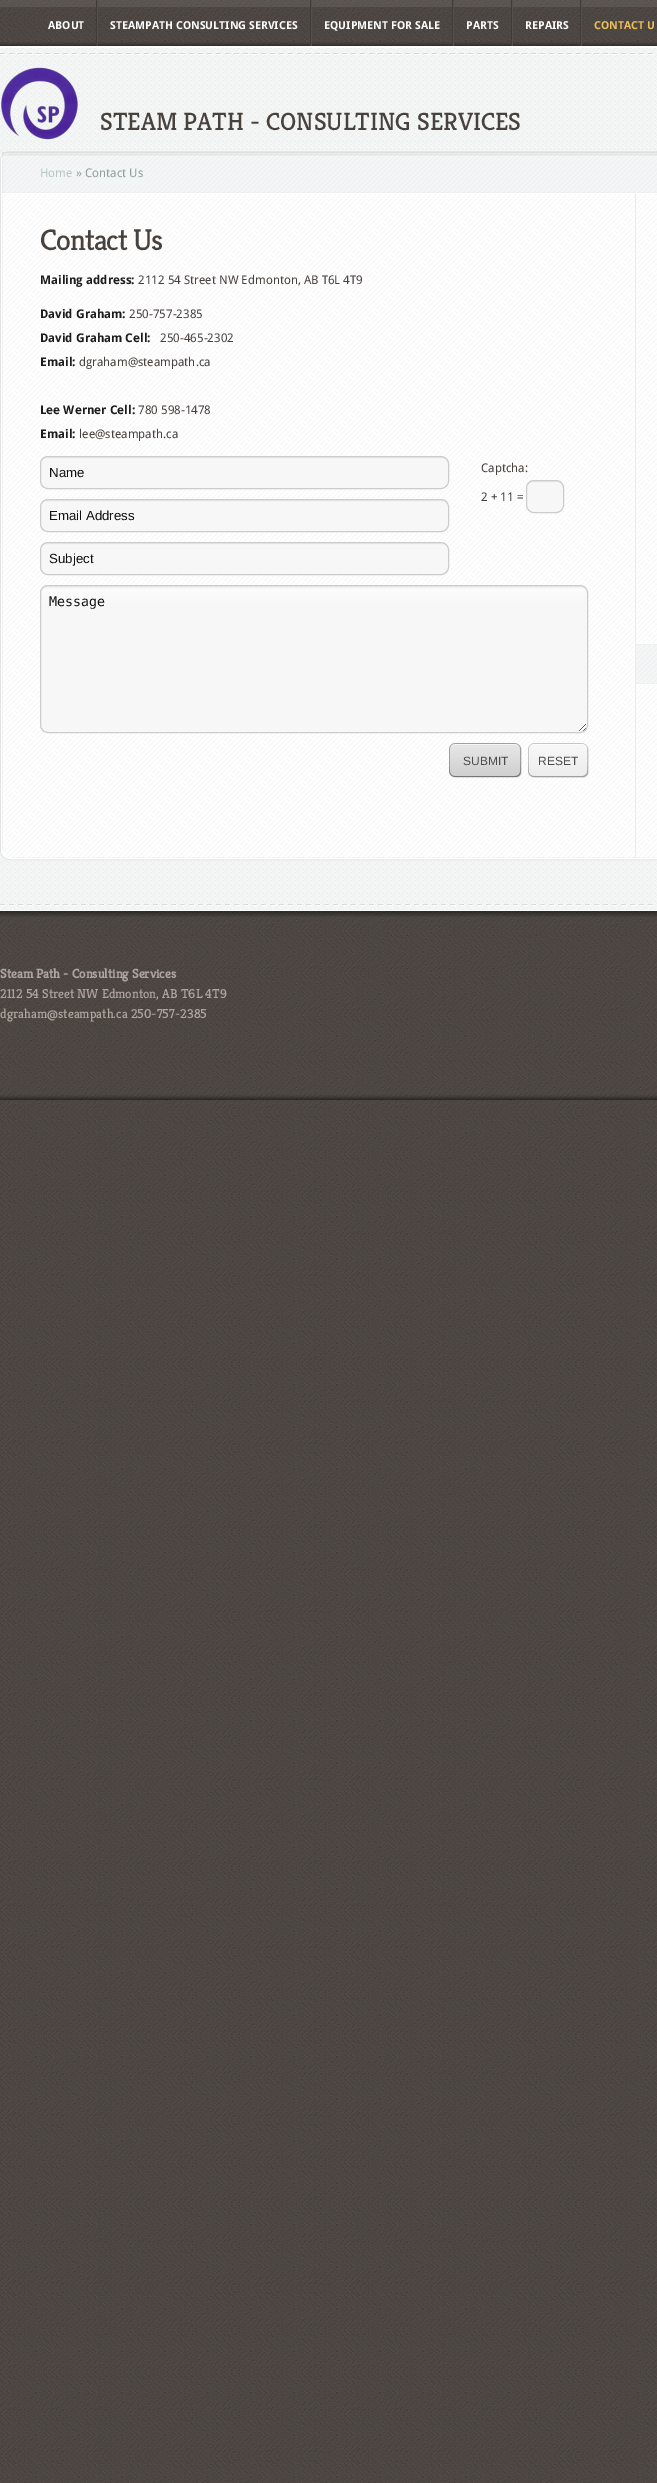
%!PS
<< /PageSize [657 2483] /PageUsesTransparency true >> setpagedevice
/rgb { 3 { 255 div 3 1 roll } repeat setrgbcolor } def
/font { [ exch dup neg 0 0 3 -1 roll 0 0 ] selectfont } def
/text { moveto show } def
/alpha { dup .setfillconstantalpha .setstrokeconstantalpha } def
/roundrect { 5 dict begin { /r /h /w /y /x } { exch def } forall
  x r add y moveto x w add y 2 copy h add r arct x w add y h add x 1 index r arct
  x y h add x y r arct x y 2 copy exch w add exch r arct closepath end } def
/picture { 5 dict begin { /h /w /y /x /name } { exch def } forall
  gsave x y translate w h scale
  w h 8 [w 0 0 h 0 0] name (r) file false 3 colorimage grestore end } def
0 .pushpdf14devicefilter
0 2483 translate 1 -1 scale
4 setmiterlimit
255 255 255 rgb
0 0 657 2483 rectfill
(img_01.rgb) 0 0 657 2483 picture
0 46 657 2 rectfill
0.08 alpha
0 0 657 7 rectfill
1 alpha
(img_03.rgb) 0 42 657 4 picture
(img_02.rgb) 96 0 2 46 picture
(img_02.rgb) 310 0 2 46 picture
(img_02.rgb) 452 0 2 46 picture
(img_02.rgb) 511 0 2 46 picture
(img_02.rgb) 580 0 2 46 picture
250 252 252 rgb
0 48 657 862 rectfill
(img_04.rgb) 0 48 657 862 picture
255 255 255 rgb
0 910 657 1 rectfill
(img_05.rgb) 0 53 654 2 picture
(img_06.rgb) 1 67 77 73 picture
226 229 229 rgb
0.5 151.5 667 708 9.5 roundrect stroke
(img_07.rgb) 1 153 656 706 picture
255 255 255 rgb
1.5 152.5 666 706 9.5 roundrect stroke
(img_08.rgb) 2 160 1 690 picture
0.03 alpha
0 0 0 rgb
7 153 650 2 rectfill
1 alpha
(img_09.rgb) 11 857 646 1 picture
(img_10.rgb) 2 153 634 41 picture
(img_18.rgb) 636 153 21 41 picture
0.03 alpha
2 154 655 2 rectfill
1 alpha
222 224 224 rgb
2 152 655 1 rectfill
233 236 236 rgb
635 194 1 664 rectfill
247 247 247 rgb
40 456 409 33 8 roundrect fill
(img_11.rgb) 42 457 404 2 picture
204 204 204 rgb
40.5 456.5 408 32 7.5 roundrect stroke
247 247 247 rgb
40 499 409 33 8 roundrect fill
(img_12.rgb) 42 500 405 2 picture
204 204 204 rgb
40.5 499.5 408 32 7.5 roundrect stroke
247 247 247 rgb
40 542 409 33 8 roundrect fill
(img_13.rgb) 42 543 404 2 picture
204 204 204 rgb
40.5 542.5 408 32 7.5 roundrect stroke
247 247 247 rgb
526 480 38 33 8 roundrect fill
(img_14.rgb) 528 481 34 2 picture
204 204 204 rgb
526.5 480.5 37 32 7.5 roundrect stroke
247 247 247 rgb
40 585 548 148 8 roundrect fill
(img_15.rgb) 42 586 544 145 picture
204 204 204 rgb
40.5 585.5 547 147 7.5 roundrect stroke
(img_16.rgb) 449 743 73 35 picture
(img_17.rgb) 528 743 61 35 picture
(img_19.rgb) 636 643 21 42 picture
(img_20.rgb) 0 904 654 2 picture
(img_21.rgb) 0 911 657 189 picture
(img_22.rgb) 0 911 657 6 picture
(img_23.rgb) 0 1095 657 5 picture
/DroidSans-Bold 11 font
255 255 255 rgb
(ABOUT) 48 29 text
(STEAMPATH CONSULTING SERVICES) 110 29 text
(EQUIPMENT FOR SALE) 324 29 text
(PARTS) 466 29 text
(REPAIRS) 525 29 text
235 190 94 rgb
(CONTACT U) 594 29 text
/Kreon-Regular 25 font
72 66 63 rgb
(STEAM PATH - CONSULTING SERVICES) 100 130 text
/DroidSans-Regular 12 font
185 197 197 rgb
(Home) 40 177 text
146 158 158 rgb
(» Contact Us) 76 177 text
/Kreon-Regular 30 font
72 66 63 rgb
40 250 moveto -1 0 (Contact Us) ashow
/DroidSans-Bold 12 font
28 28 28 rgb
(Mailing address:) 40 284 text
/DroidSans-Regular 12 font
72 66 63 rgb
(2112 54 Street NW Edmonton, AB T6L 4T9) 138 284 text
/DroidSans-Bold 12 font
28 28 28 rgb
(David Graham:) 40 318 text
/DroidSans-Regular 12 font
72 66 63 rgb
(250-757-2385) 129 318 text
/DroidSans-Bold 12 font
28 28 28 rgb
(David Graham Cell:) 40 342 text
/DroidSans-Regular 12 font
72 66 63 rgb
(250-465-2302) 160 342 text
/DroidSans-Bold 12 font
28 28 28 rgb
(Email:) 40 366 text
/DroidSans-Regular 12 font
72 66 63 rgb
(dgraham@steampath.ca) 79 366 text
/DroidSans-Bold 12 font
28 28 28 rgb
(Lee Werner Cell:) 40 414 text
/DroidSans-Regular 12 font
72 66 63 rgb
(780 598-1478) 138 414 text
/DroidSans-Bold 12 font
28 28 28 rgb
(Email:) 40 438 text
/DroidSans-Regular 12 font
72 66 63 rgb
(lee@steampath.ca) 79 438 text
/LiberationSans-Regular 13.25 font
17 17 17 rgb
(Name) 49 477 text
(Email Address) 49 520 text
(Subject) 49 563 text
/DroidSans-Regular 12 font
72 66 63 rgb
(Captcha:) 481 472 text
(2 + 11 =) 481 501 text
/DejaVuSansMono-Regular 13.25 font
17 17 17 rgb
(Message) 49 606 text
/LiberationSans-Regular 12 font
76 75 75 rgb
(SUBMIT) 463 765 text
(RESET) 538 765 text
/Kreon-Bold 13 font
175 165 159 rgb
(Steam Path - Consulting Services) 0 978 text
/Kreon-Regular 13 font
(2112 54 Street NW Edmonton, AB T6L 4T9) 0 998 text
(dgraham@steampath.ca 250-757-2385) 0 1018 text
.poppdf14devicefilter showpage
